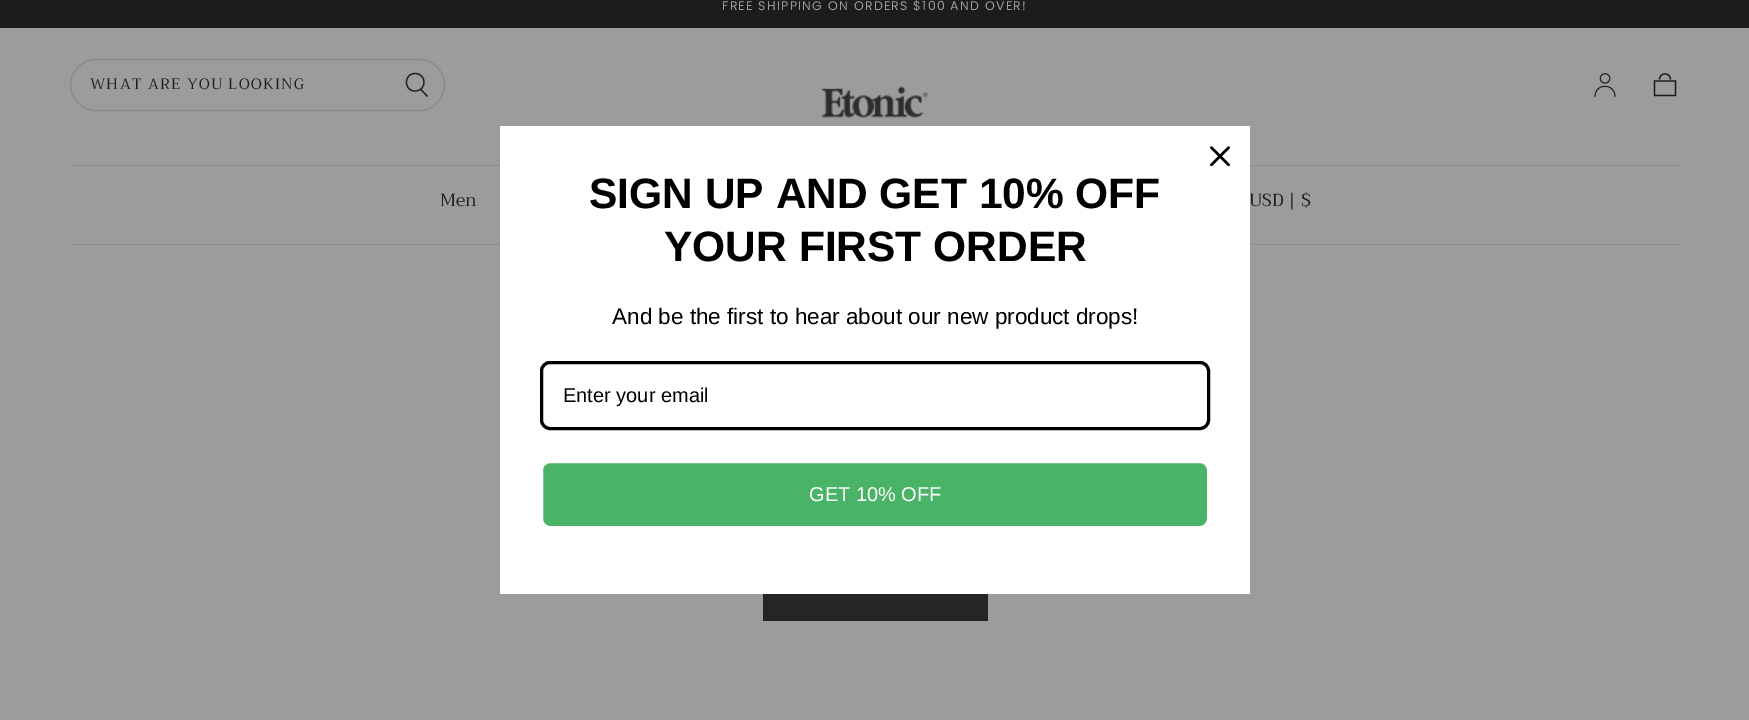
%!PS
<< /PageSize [1749 720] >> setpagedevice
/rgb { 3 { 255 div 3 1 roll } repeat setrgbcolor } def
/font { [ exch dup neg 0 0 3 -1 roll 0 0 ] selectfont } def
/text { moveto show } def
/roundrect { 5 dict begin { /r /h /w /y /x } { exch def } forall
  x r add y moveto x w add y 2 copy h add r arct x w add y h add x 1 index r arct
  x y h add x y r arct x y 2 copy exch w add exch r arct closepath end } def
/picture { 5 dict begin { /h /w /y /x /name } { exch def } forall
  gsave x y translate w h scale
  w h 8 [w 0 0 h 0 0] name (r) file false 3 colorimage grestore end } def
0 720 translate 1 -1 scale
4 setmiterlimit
156 156 156 rgb
0 0 1749 720 rectfill
28 28 28 rgb
0 0 1749 28 rectfill
137 137 137 rgb
70.5 59.5 374 51 25.5 roundrect stroke
37 37 37 rgb
1.3 setlinewidth
420.5 89 moveto 7 7.5 rlineto 415 91 moveto 12 0 12 -17.5 0 -17.5 rcurveto -11.5 0 -11.5 17.5 0 17.5 rcurveto closepath stroke
(img_01.rgb) 1594 73 22 24 picture
28 28 28 rgb
1.2 setlinewidth
1675.5 95.5 moveto -21 0 rlineto 0 -14.5 rlineto 21 0 rlineto closepath 1670.5 79.5 moveto 0 -7.5 -11 -7.5 -11 0 rcurveto stroke
(img_02.rgb) 821 86 108 32 picture
139 139 139 rgb
70 165 1610 1 rectfill
143 141 141 rgb
70 244 1610 1 rectfill
37 37 37 rgb
763 594 225 27 rectfill
/Poppins-Regular 12.5 font
156 156 156 rgb
722 10 moveto 1.25 0 (FREE SHIPPING ON ORDERS $100 AND OVER!) ashow
/Trirong-Regular 15 font
28 28 28 rgb
90 89 moveto 1.25 0 (WHAT ARE YOU LOOKING) ashow
/Trirong-Regular 17.5 font
(Men) 440 206 text
(USD | $) 1249 206 text
255 255 255 rgb
500 126 750 468 rectfill
(img_03.rgb) 1210 146 20 20 picture
/LiberationSans-Bold 42.5 font
0 0 0 rgb
(SIGN UP AND GET 10% OFF) 589 208 text
(YOUR FIRST ORDER) 664 261 text
/LiberationSans-Regular 22.5 font
(And be the first to hear about our new product drops!) 612 324 text
3 setlinewidth
541.5 362.5 667 66 8.5 roundrect stroke
/LiberationSans-Regular 20 font
(Enter your email) 563 402 text
73 180 103 rgb
541.5 461.5 667 66 8.5 roundrect gsave fill grestore
255 255 255 rgb
stroke
(GET 10% OFF) 809 501 text
showpage
